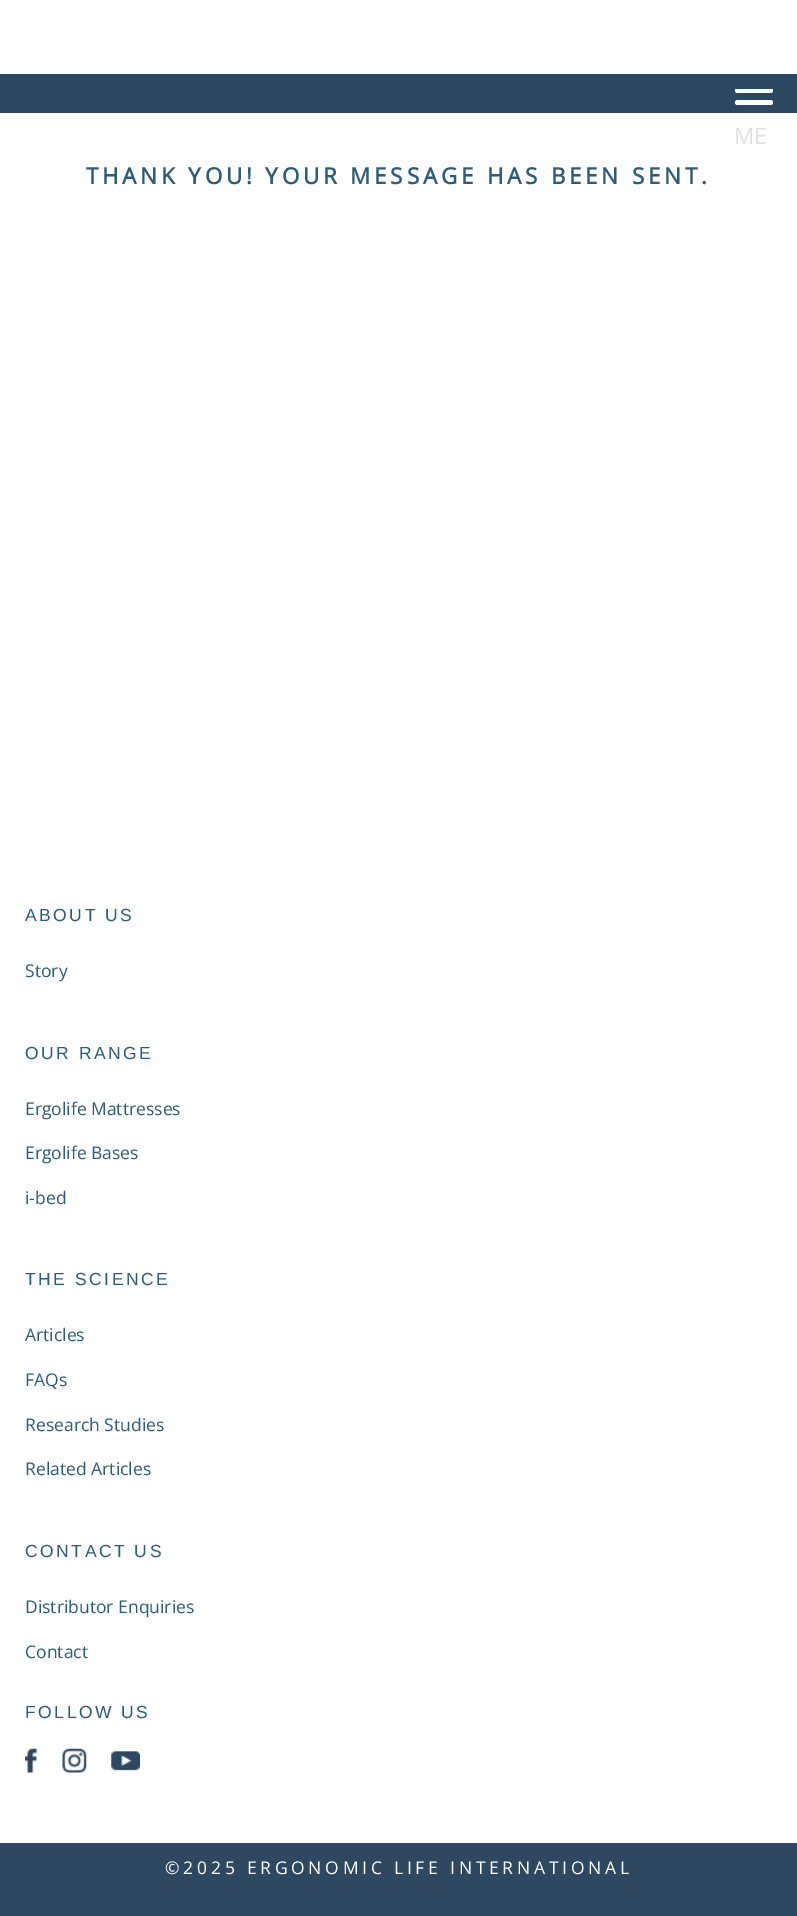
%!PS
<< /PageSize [797 1916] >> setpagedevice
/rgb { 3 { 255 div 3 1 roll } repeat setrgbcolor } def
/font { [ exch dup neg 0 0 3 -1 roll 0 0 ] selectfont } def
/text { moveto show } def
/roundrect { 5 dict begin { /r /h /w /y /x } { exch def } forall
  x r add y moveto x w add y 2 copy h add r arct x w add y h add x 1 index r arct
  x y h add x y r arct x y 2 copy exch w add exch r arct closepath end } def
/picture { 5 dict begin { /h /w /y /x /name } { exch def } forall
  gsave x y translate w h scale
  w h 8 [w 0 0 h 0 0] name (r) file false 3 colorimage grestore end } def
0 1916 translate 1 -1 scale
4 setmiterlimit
255 255 255 rgb
0 0 797 1916 rectfill
43 71 97 rgb
0 74 797 39 rectfill
gsave
734 89 39 126 rectclip
255 255 255 rgb
735 88 38 5 2.5 roundrect fill
grestore
255 255 255 rgb
735 100 38 5 2.5 roundrect fill
(img_01.rgb) 25 1748 13 25 picture
(img_02.rgb) 62 1748 25 25 picture
(img_03.rgb) 111 1751 29 20 picture
45 72 96 rgb
0 1843 797 73 rectfill
/OpenSans-Regular 22.5 font
223 223 223 rgb
(ME) 734 144 text
/OpenSans-Bold 22.5 font
43 92 122 rgb
86 184 moveto 3.75 0 (THANK YOU! YOUR MESSAGE HAS BEEN SENT.) ashow
/LiberationSans-Regular 17.5 font
25 921 moveto 2.5 0 (ABOUT US) ashow
/OpenSans-Regular 17.5 font
(Story) 25 977 text
/LiberationSans-Regular 17.5 font
25 1059 moveto 2.5 0 (OUR RANGE) ashow
/OpenSans-Regular 17.5 font
(Ergolife Mattresses) 25 1115 text
(Ergolife Bases) 25 1159 text
(i-bed) 25 1204 text
/LiberationSans-Regular 17.5 font
25 1285 moveto 2.5 0 (THE SCIENCE) ashow
/OpenSans-Regular 17.5 font
(Articles) 25 1341 text
(FAQs) 25 1386 text
(Research Studies) 25 1431 text
(Related Articles) 25 1475 text
/LiberationSans-Regular 17.5 font
25 1557 moveto 2.5 0 (CONTACT US) ashow
/OpenSans-Regular 17.5 font
(Distributor Enquiries) 25 1613 text
(Contact) 25 1658 text
/LiberationSans-Regular 17.5 font
25 1718 moveto 2.5 0 (FOLLOW US) ashow
/OpenSans-Regular 17.5 font
255 255 255 rgb
165 1874 moveto 3.75 0 (©2025 ERGONOMIC LIFE INTERNATIONAL) ashow
showpage
